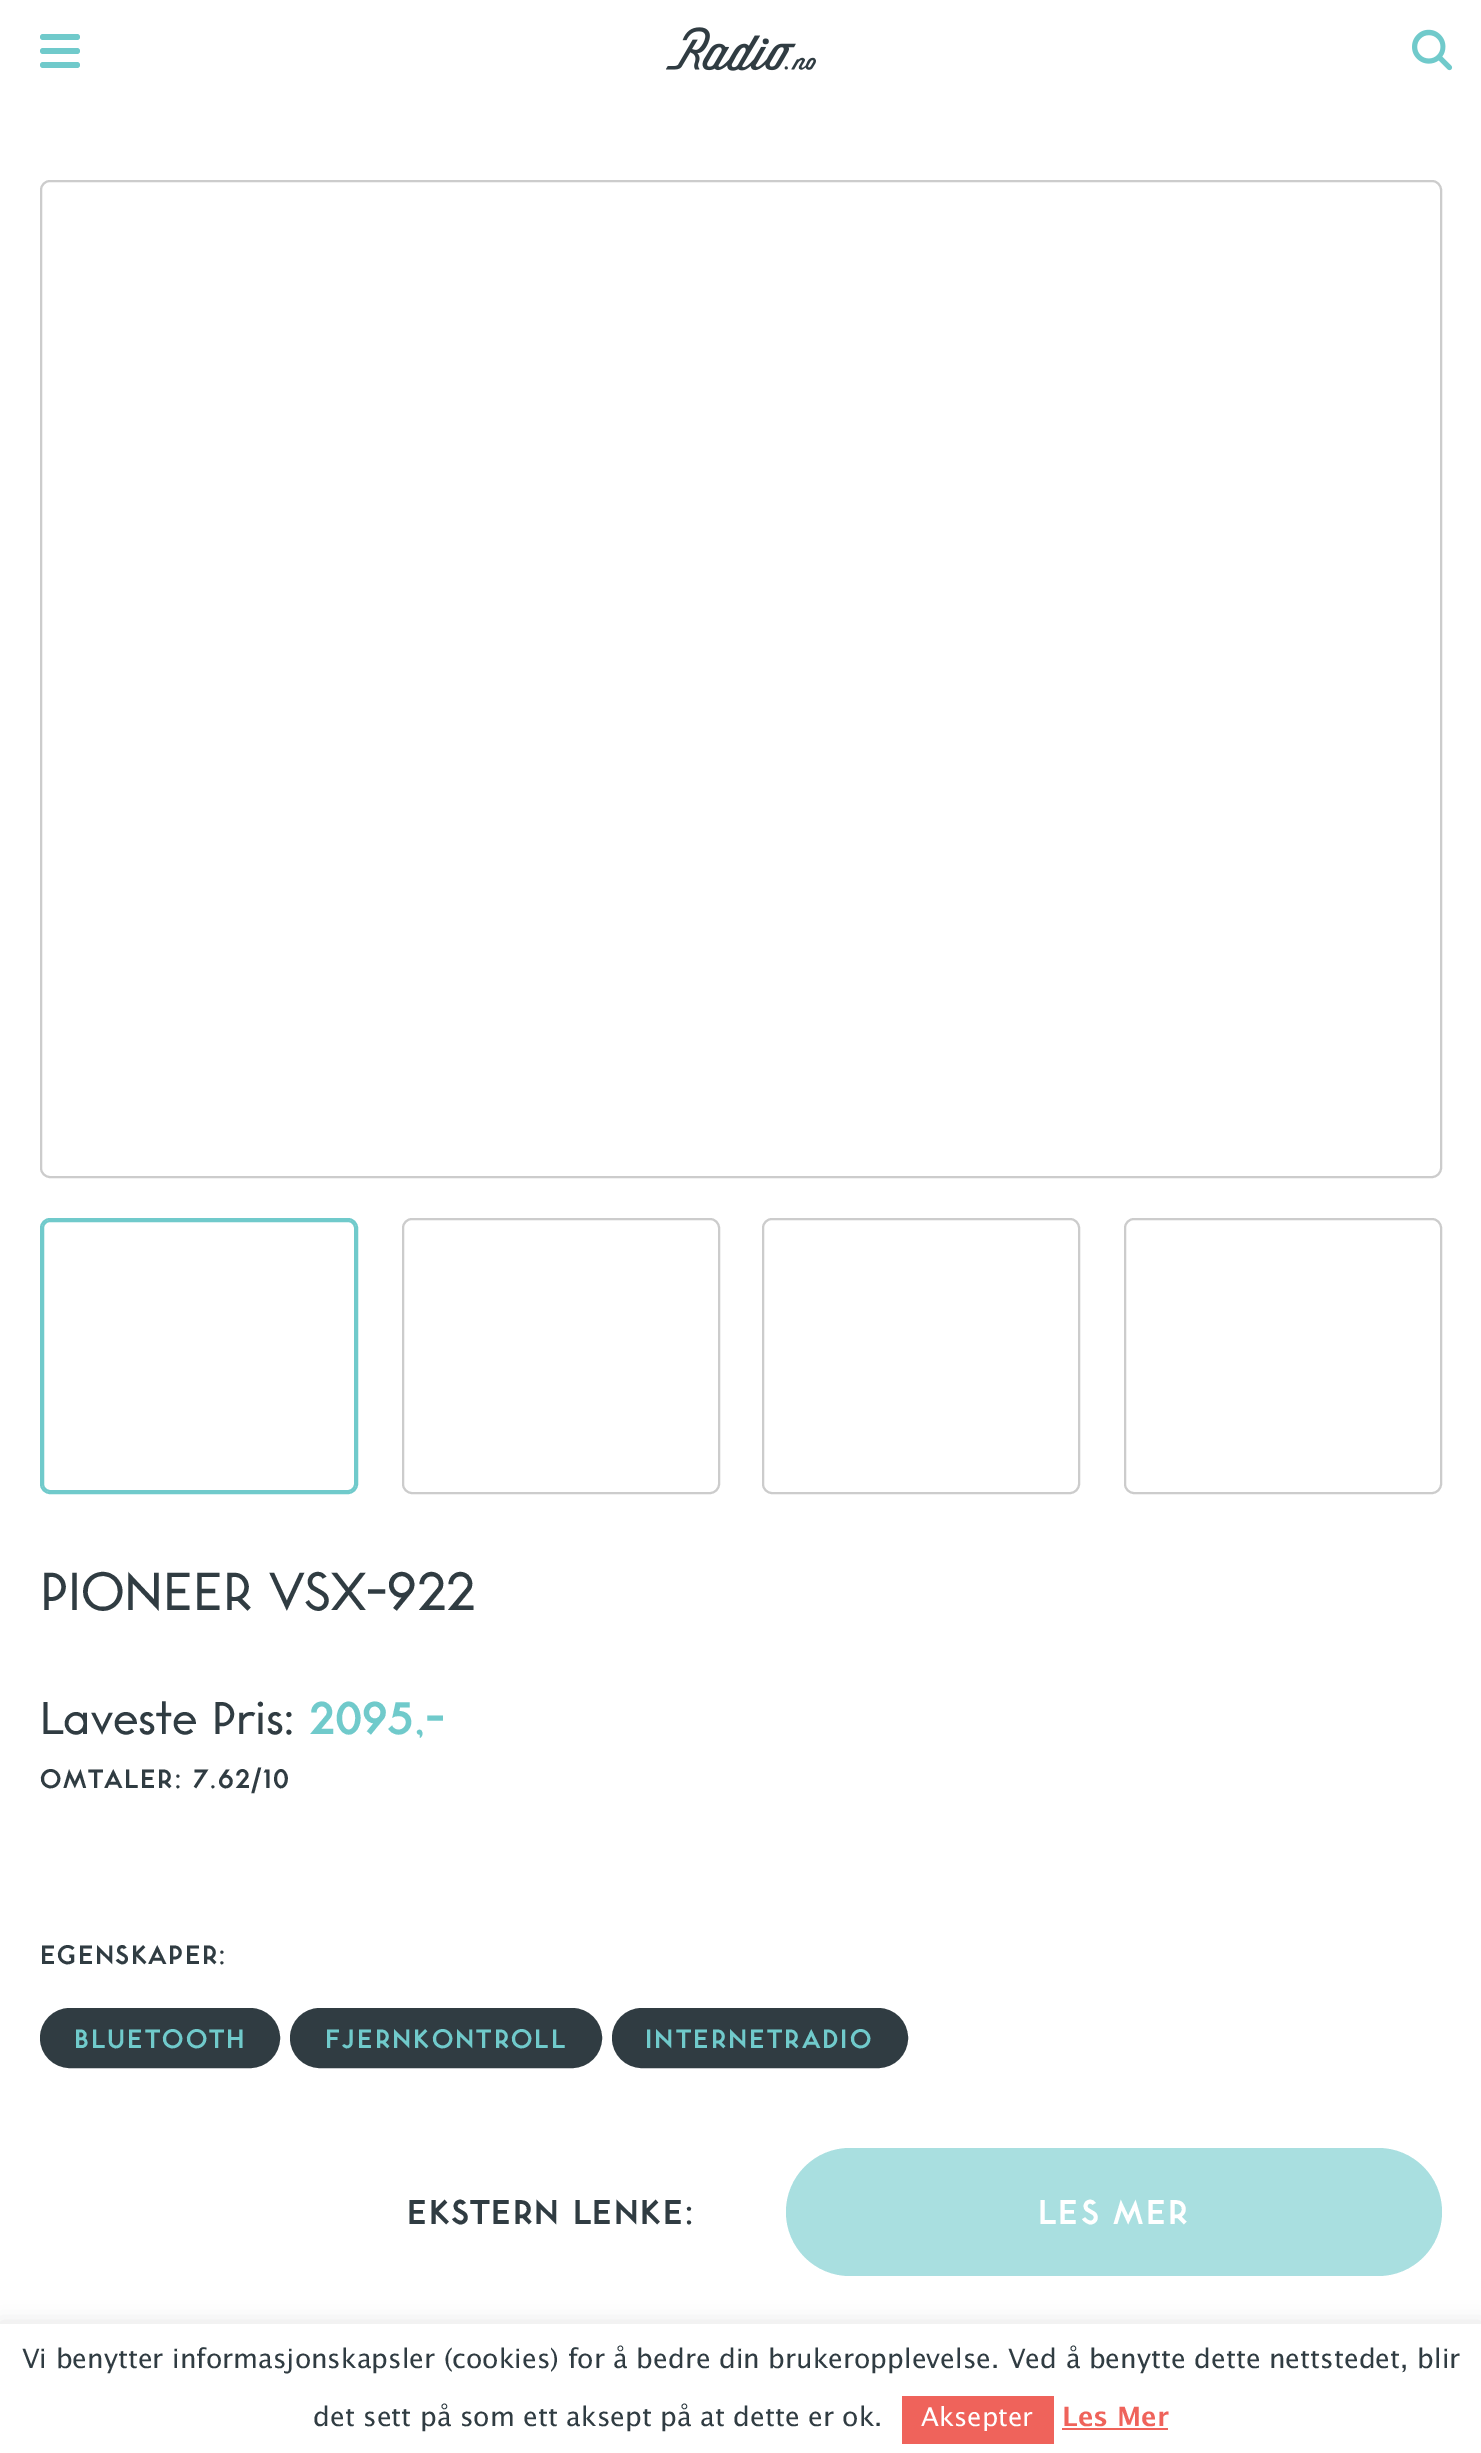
%!PS
<< /PageSize [1481 2453] /PageUsesTransparency true >> setpagedevice
/rgb { 3 { 255 div 3 1 roll } repeat setrgbcolor } def
/font { [ exch dup neg 0 0 3 -1 roll 0 0 ] selectfont } def
/text { moveto show } def
/alpha { dup .setfillconstantalpha .setstrokeconstantalpha } def
/roundrect { 5 dict begin { /r /h /w /y /x } { exch def } forall
  x r add y moveto x w add y 2 copy h add r arct x w add y h add x 1 index r arct
  x y h add x y r arct x y 2 copy exch w add exch r arct closepath end } def
/shadow { 12 dict begin { /a /b /q /h /w /y /x } { exch def } forall gsave /was 0 def
  9 -2 -9 { dup b mul 4 div /e exch def 1 sub .425 mul 2.718 exch exp 1 add a .99 .min exch div /now exch def
    1 1 now sub 1 was sub div sub alpha /was now def
    w h .min e 2 mul add 0 gt { x e sub y e sub w e 2 mul add h e 2 mul add
      q e add b .6 mul add w h .min 2 div e add .min 0 .max roundrect fill } if } for grestore end } def
/picture { 5 dict begin { /h /w /y /x /name } { exch def } forall
  gsave x y translate w h scale
  w h 8 [w 0 0 h 0 0] name (r) file false 3 colorimage grestore end } def
0 .pushpdf14devicefilter
0 2453 translate 1 -1 scale
4 setmiterlimit
255 255 255 rgb
0 0 1481 2453 rectfill
112 202 203 rgb
40 62 40 6 3 roundrect fill
40 34 40 6 3 roundrect fill
40 48 40 6 3 roundrect fill
(img_01.rgb) 666 27 150 44 picture
(img_02.rgb) 1412 29 41 42 picture
204 204 204 rgb
2 setlinewidth
41 181 1400 996 9 roundrect stroke
112 202 203 rgb
43 1221 312 270 7 roundrect stroke
41 1219 316 274 9 roundrect stroke
204 204 204 rgb
403 1219 316 274 9 roundrect stroke
763 1219 316 274 9 roundrect stroke
1125 1219 316 274 9 roundrect stroke
48 60 66 rgb
42 2010 236 56 28 roundrect gsave fill grestore
4 setlinewidth
stroke
292 2010 308 56 28 roundrect gsave fill grestore
stroke
614 2010 292 56 28 roundrect gsave fill grestore
stroke
169 223 224 rgb
786 2148 656 128 64 roundrect fill
172 171 171 rgb
0 2322 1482 130 0 10 0.3 shadow
255 255 255 rgb
0 2324 1481 129 rectfill
239 99 91 rgb
902 2396 152 48 rectfill
1062 2428 106 2 rectfill
/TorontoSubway-Regular 56 font
48 60 66 rgb
(PIONEER VSX-922) 40 1610 text
/TorontoSubway-Regular 48 font
(Laveste Pris:) 40 1734 text
/TorontoSubway-Bold 48 font
112 202 203 rgb
(2095,-) 309 1734 text
/TorontoSubway-Bold 28 font
48 60 66 rgb
40 1788 moveto 1.4 0 (OMTALER: 7.62/10) ashow
40 1964 moveto 1.4 0 (EGENSKAPER:) ashow
112 202 203 rgb
74 2048 moveto 2 0 (BLUETOOTH) ashow
325 2048 moveto 2 0 (FJERNKONTROLL) ashow
645 2048 moveto 2 0 (INTERNETRADIO) ashow
/TorontoSubway-Bold 36 font
48 60 66 rgb
407 2224 moveto 1.4 0 (EKSTERN LENKE:) ashow
255 255 255 rgb
1038 2224 moveto 2 0 (LES MER) ashow
/LucidaGrande-Regular 26.67 font
48 60 66 rgb
(Vi benytter informasjonskapsler \(cookies\) for å bedre din brukeropplevelse. Ved å benytte dette nettstedet, blir) 22 2368 text
(det sett på som ett aksept på at dette er ok.) 313 2426 text
/LucidaGrande-Regular 26 font
255 255 255 rgb
(Aksepter) 921 2426 text
/LucidaGrande-Bold 26.67 font
239 99 91 rgb
(Les Mer) 1062 2426 text
.poppdf14devicefilter showpage
